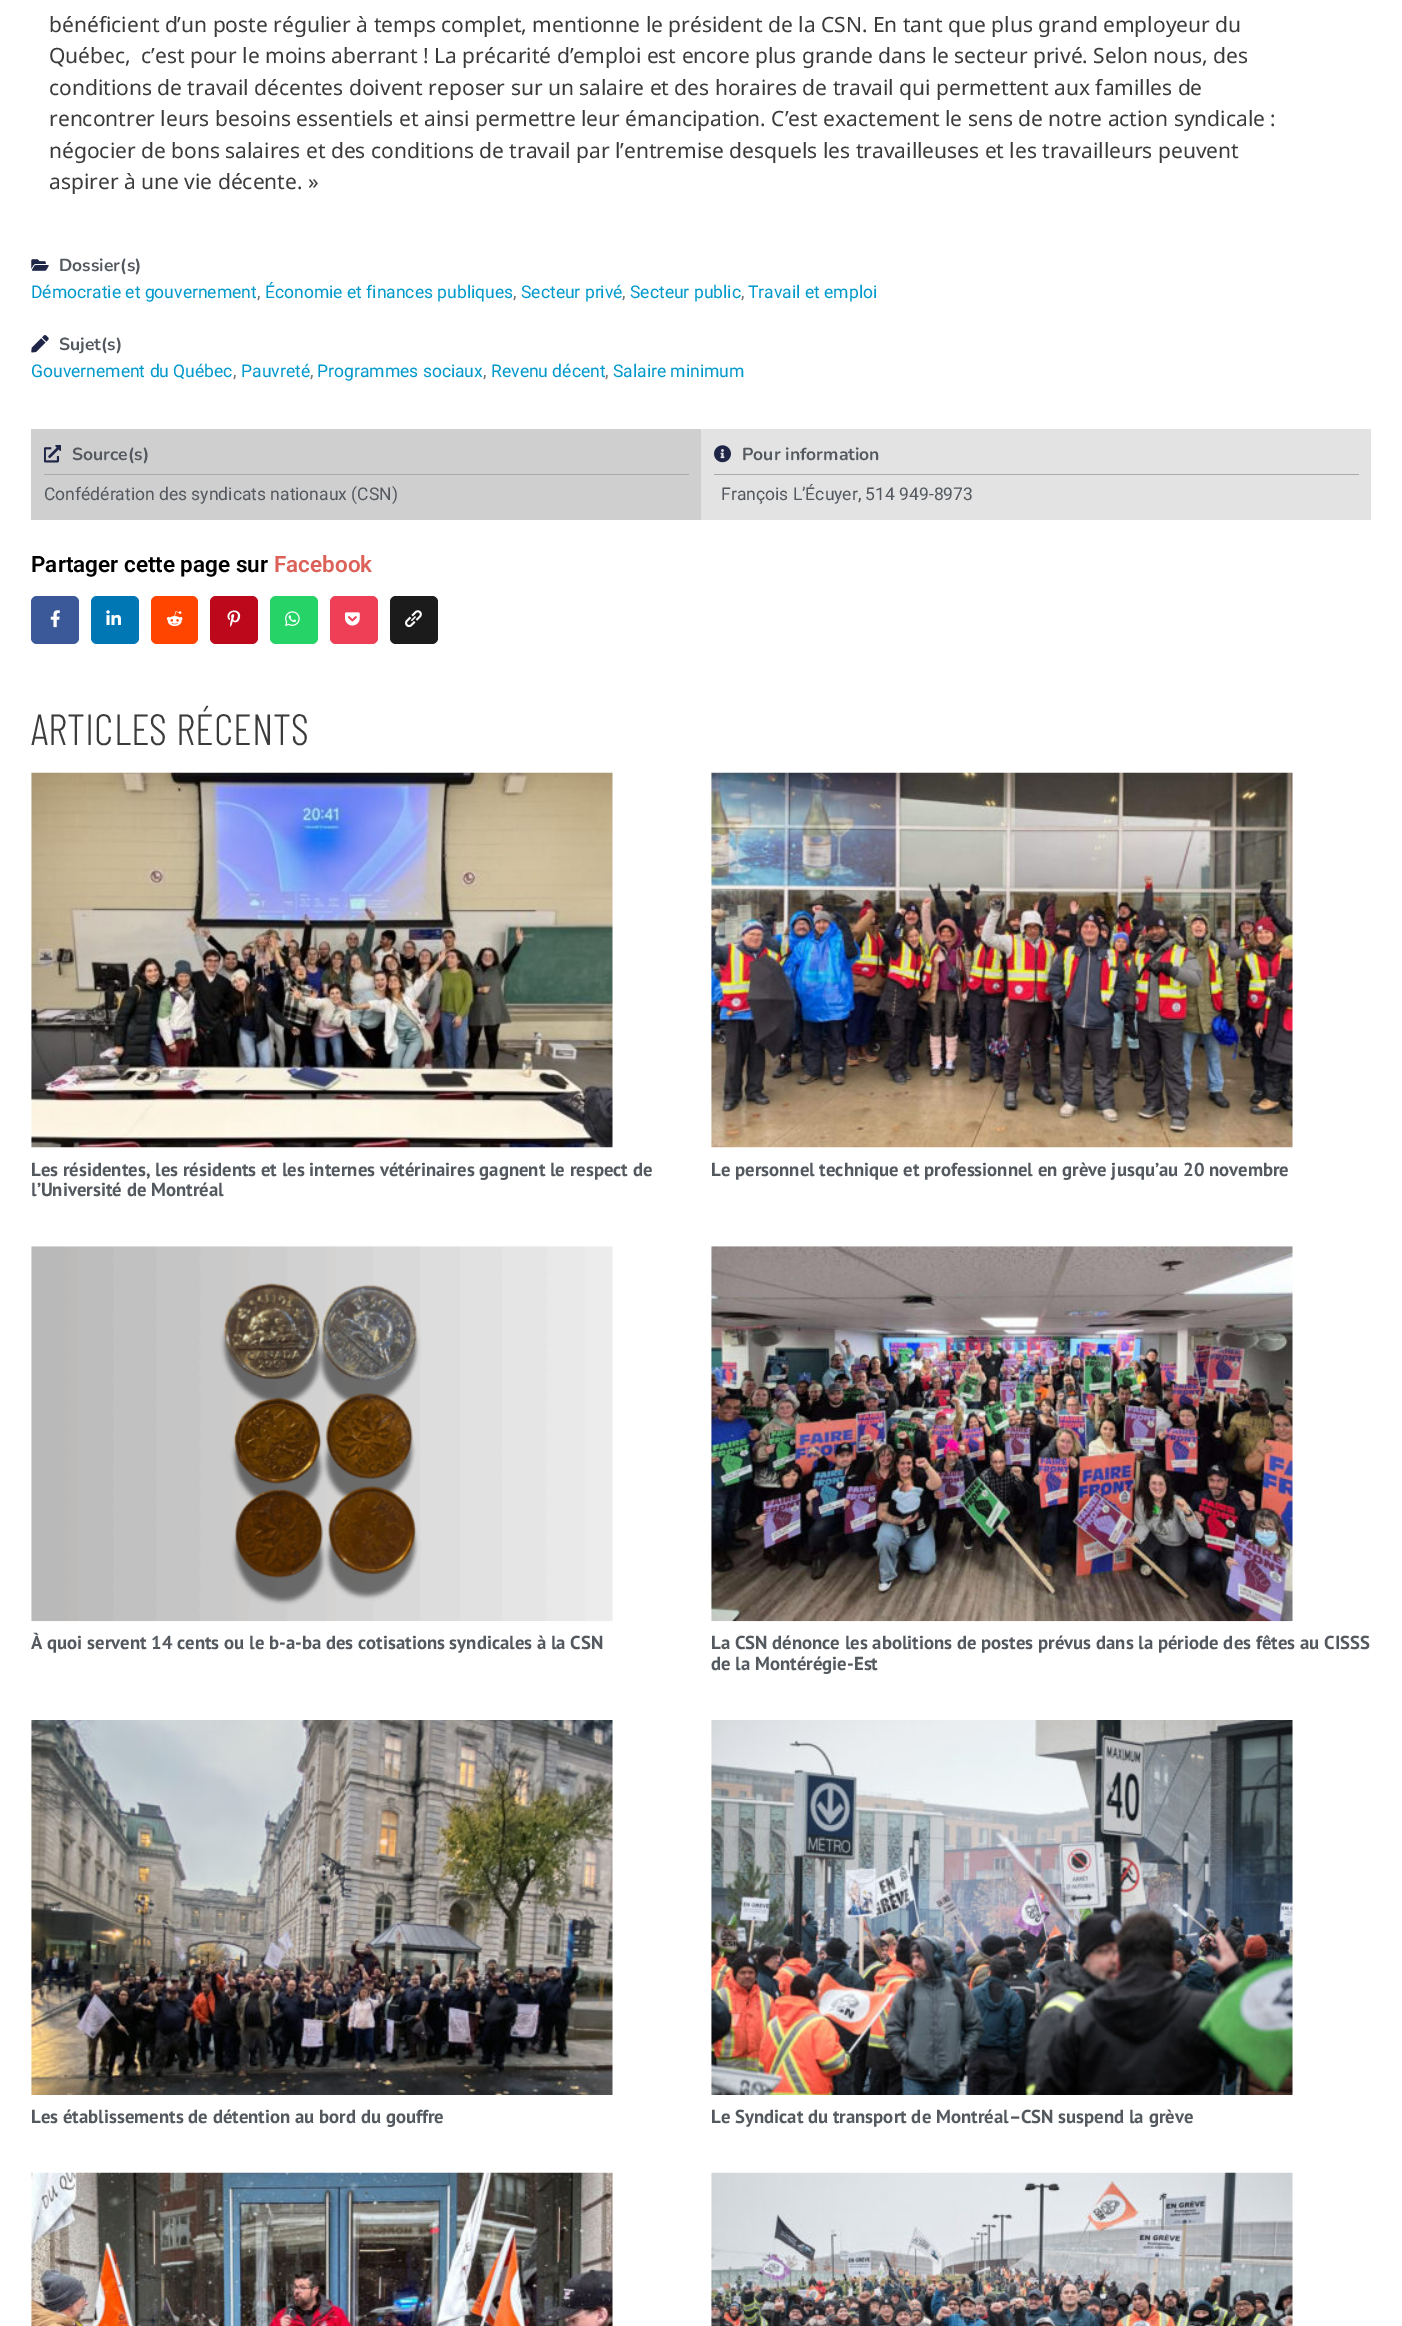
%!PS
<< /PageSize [1402 2326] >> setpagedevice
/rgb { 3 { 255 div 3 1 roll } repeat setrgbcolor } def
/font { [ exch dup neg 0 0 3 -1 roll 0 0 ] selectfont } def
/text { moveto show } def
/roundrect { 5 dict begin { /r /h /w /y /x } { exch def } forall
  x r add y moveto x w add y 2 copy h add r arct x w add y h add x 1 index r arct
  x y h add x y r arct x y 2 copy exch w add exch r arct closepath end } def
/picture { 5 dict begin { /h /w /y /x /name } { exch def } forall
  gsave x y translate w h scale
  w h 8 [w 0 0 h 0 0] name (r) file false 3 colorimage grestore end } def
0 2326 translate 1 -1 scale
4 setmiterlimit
255 255 255 rgb
0 0 1402 2326 rectfill
(img_01.rgb) 31 259 18 12 picture
(img_02.rgb) 31 335 18 18 picture
207 207 207 rgb
31 429 670 91 rectfill
170 170 170 rgb
44 474 645 1 rectfill
(img_03.rgb) 44 445 17 18 picture
227 227 227 rgb
701 429 670 91 rectfill
170 170 170 rgb
714 474 645 1 rectfill
(img_04.rgb) 714 445 17 18 picture
59 89 152 rgb
31 596 48 48 6 roundrect fill
(img_05.rgb) 50 610 10 18 picture
0 119 181 rgb
91 596 48 48 6 roundrect fill
(img_06.rgb) 106 610 15 15 picture
255 69 0 rgb
151 596 47 48 6 roundrect fill
(img_07.rgb) 166 611 17 16 picture
189 8 28 rgb
210 596 48 48 6 roundrect fill
(img_08.rgb) 227 610 14 17 picture
37 211 102 rgb
270 596 48 48 6 roundrect fill
(img_09.rgb) 285 611 15 15 picture
239 63 86 rgb
330 596 48 48 6 roundrect fill
(img_10.rgb) 345 612 15 14 picture
27 27 27 rgb
390 596 48 48 6 roundrect fill
(img_11.rgb) 405 610 17 18 picture
(img_12.rgb) 31 772 582 376 picture
(img_13.rgb) 711 772 582 376 picture
(img_14.rgb) 31 1246 582 376 picture
(img_15.rgb) 711 1246 582 376 picture
(img_16.rgb) 31 1720 582 375 picture
(img_17.rgb) 711 1720 582 375 picture
(img_18.rgb) 31 2172 582 154 picture
(img_19.rgb) 711 2172 582 154 picture
/NotoSansTakri-Regular 21 font
59 59 59 rgb
(bénéficient d’un poste régulier à temps complet, mentionne le président de la CSN. En tant que plus grand employeur du) 49 32 text
(Québec,) 49 63 text
(c’est pour le moins aberrant) 141 63 text
(! La précarité d’emploi est encore plus grande dans le secteur privé. Selon nous, des) 423 63 text
(conditions de travail décentes doivent reposer sur un salaire et des horaires de travail qui permettent aux familles de) 49 95 text
(rencontrer leurs besoins essentiels et ainsi permettre leur émancipation. C’est exactement le sens de notre action syndicale :) 49 126 text
(négocier de bons salaires et des conditions de travail par l’entremise desquels les travailleuses et les travailleurs peuvent) 49 158 text
(aspirer à une vie décente. ») 49 189 text
/Nunito-Bold 17.5 font
84 89 95 rgb
(Dossier\(s\)) 59 271 text
/Roboto-Regular 17.5 font
0 153 204 rgb
(Démocratie et gouvernement) 31 298 text
122 121 121 rgb
(,) 257 298 text
0 153 204 rgb
(Économie et finances publiques) 265 298 text
122 121 121 rgb
(,) 513 298 text
0 153 204 rgb
(Secteur privé) 521 298 text
122 121 121 rgb
(,) 622 298 text
0 153 204 rgb
(Secteur public) 630 298 text
122 121 121 rgb
(,) 741 298 text
0 153 204 rgb
(Travail et emploi) 748 298 text
/Nunito-Bold 17.5 font
84 89 95 rgb
(Sujet\(s\)) 59 350 text
/Roboto-Regular 17.5 font
0 153 204 rgb
(Gouvernement du Québec) 31 377 text
122 121 121 rgb
(,) 233 377 text
0 153 204 rgb
(Pauvreté) 241 377 text
122 121 121 rgb
(,) 310 377 text
0 153 204 rgb
(Programmes sociaux) 317 377 text
122 121 121 rgb
(,) 483 377 text
0 153 204 rgb
(Revenu décent) 491 377 text
122 121 121 rgb
(,) 605 377 text
0 153 204 rgb
(Salaire minimum) 613 377 text
/Nunito-Bold 17.5 font
84 89 95 rgb
(Source\(s\)) 72 460 text
/Roboto-Regular 17.5 font
(Confédération des syndicats nationaux \(CSN\)) 44 500 text
/Nunito-Bold 17.5 font
(Pour information) 742 460 text
/Roboto-Regular 17.5 font
(François L’Écuyer, 514 949-8973) 721 500 text
/Roboto-SemiBold 22.5 font
0 0 0 rgb
(Partager cette page sur) 31 572 text
219 97 89 rgb
(Facebook) 274 572 text
/BarlowCondensed-Light 43.75 font
59 59 59 rgb
(ARTICLES RÉCENTS) 31 745 text
/PTSans-Bold 18.75 font
84 89 95 rgb
(Les résidentes, les résidents et les internes vétérinaires gagnent le respect de) 31 1176 text
(l’Université de Montréal) 31 1196 text
(Le personnel technique et professionnel en grève jusqu’au 20 novembre) 711 1176 text
(À quoi servent 14 cents ou le b-a-ba des cotisations syndicales à la CSN) 31 1649 text
(La CSN dénonce les abolitions de postes prévus dans la période des fêtes au CISSS) 711 1649 text
(de la Montérégie-Est) 711 1670 text
(Les établissements de détention au bord du gouffre) 31 2123 text
(Le Syndicat du transport de Montréal–CSN suspend la grève) 711 2123 text
showpage
